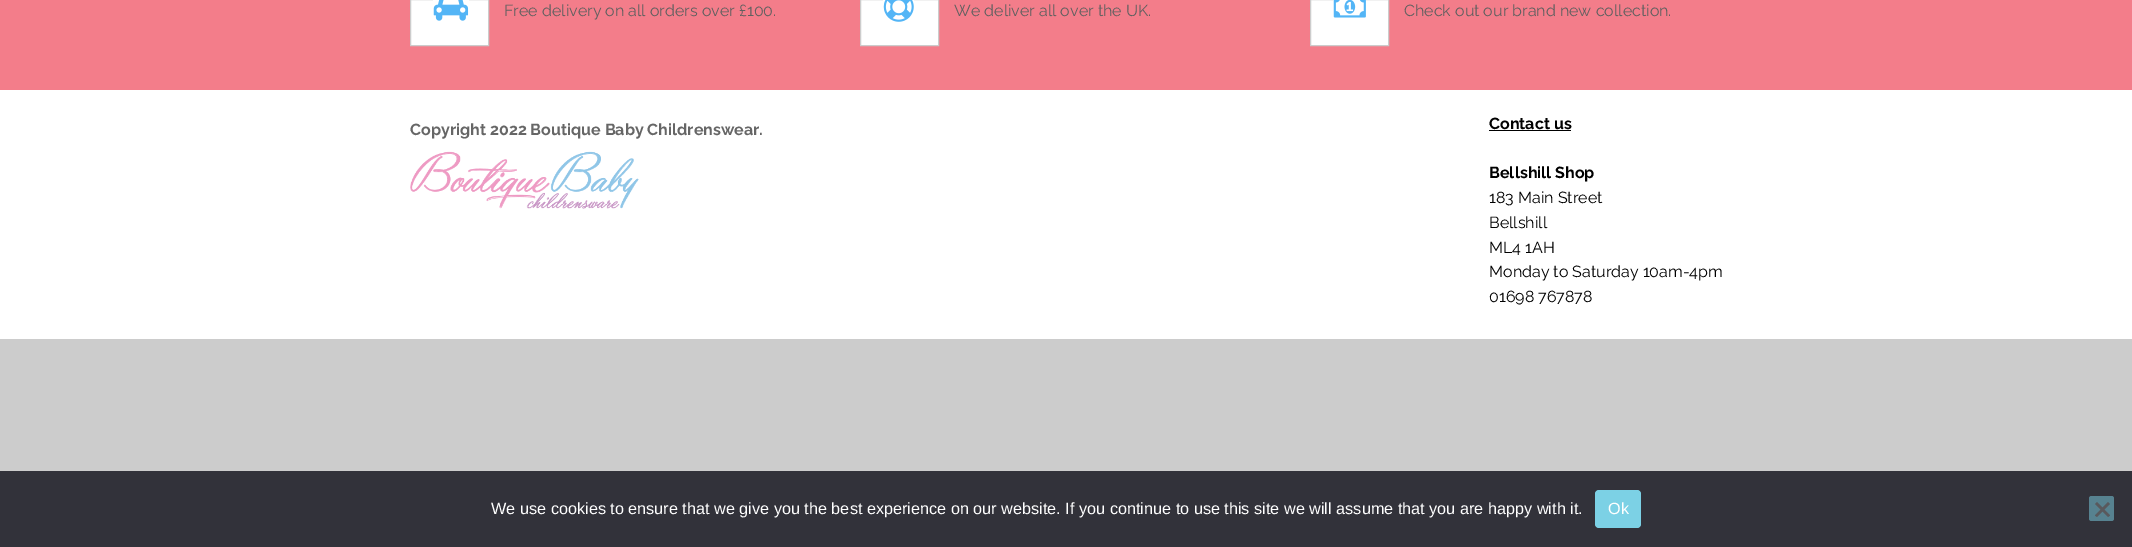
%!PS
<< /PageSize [2132 547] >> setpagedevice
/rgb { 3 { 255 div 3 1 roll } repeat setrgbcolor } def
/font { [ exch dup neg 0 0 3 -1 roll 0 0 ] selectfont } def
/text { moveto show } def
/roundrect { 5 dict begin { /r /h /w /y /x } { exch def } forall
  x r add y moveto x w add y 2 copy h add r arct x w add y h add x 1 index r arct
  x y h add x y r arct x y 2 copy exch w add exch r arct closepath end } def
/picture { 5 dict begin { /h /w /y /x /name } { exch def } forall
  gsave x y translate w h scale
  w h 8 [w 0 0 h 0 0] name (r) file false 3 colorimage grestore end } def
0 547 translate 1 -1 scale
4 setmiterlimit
204 204 204 rgb
0 0 2132 547 rectfill
255 255 255 rgb
0 90 2132 249 rectfill
243 125 138 rgb
0 0 2132 90 rectfill
255 255 255 rgb
410.5 -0.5 moveto 78 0 rlineto 0 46 rlineto -78 0 rlineto closepath gsave fill grestore
204 204 204 rgb
stroke
(img_01.rgb) 433 0 36 21 picture
255 255 255 rgb
860.5 -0.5 moveto 78 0 rlineto 0 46 rlineto -78 0 rlineto closepath gsave fill grestore
204 204 204 rgb
stroke
(img_02.rgb) 883 0 31 22 picture
255 255 255 rgb
1310.5 -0.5 moveto 78 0 rlineto 0 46 rlineto -78 0 rlineto closepath gsave fill grestore
204 204 204 rgb
stroke
(img_03.rgb) 1333 0 33 18 picture
(img_04.rgb) 410 151 229 58 picture
0 0 0 rgb
1489 130 82 1 rectfill
50 50 58 rgb
0 471 2132 76 rectfill
124 209 229 rgb
1595 490 46 38 4 roundrect fill
87 130 144 rgb
2089 496 25 25 2.5 roundrect fill
89 89 93 rgb
2108 502 moveto 2 2 rlineto -13 13 rlineto -2 -1.5 rlineto closepath fill
2095 504 moveto 2 -2 rlineto 13 13.5 rlineto -2 1.5 rlineto closepath fill
/Raleway-Regular 16 font
96 96 96 rgb
(Free delivery on all orders over £100.) 504 16 text
(We deliver all over the UK.) 954 16 text
(Check out our brand new collection.) 1404 16 text
/Raleway-Bold 16 font
102 102 102 rgb
(Copyright 2022 Boutique Baby Childrenswear.) 410 135 text
0 0 0 rgb
(Contact us) 1489 129 text
(Bellshill Shop) 1489 178 text
/Raleway-Regular 16 font
(183 Main Street) 1489 203 text
(Bellshill) 1489 228 text
(ML4 1AH) 1489 253 text
(Monday to Saturday 10am-4pm) 1489 277 text
(01698 767878) 1489 302 text
/LiberationSans-Regular 16.25 font
255 255 255 rgb
(We use cookies to ensure that we give you the best experience on our website. If you continue to use this site we will assume that you are happy with it.) 491 514 text
(Ok) 1608 514 text
showpage
